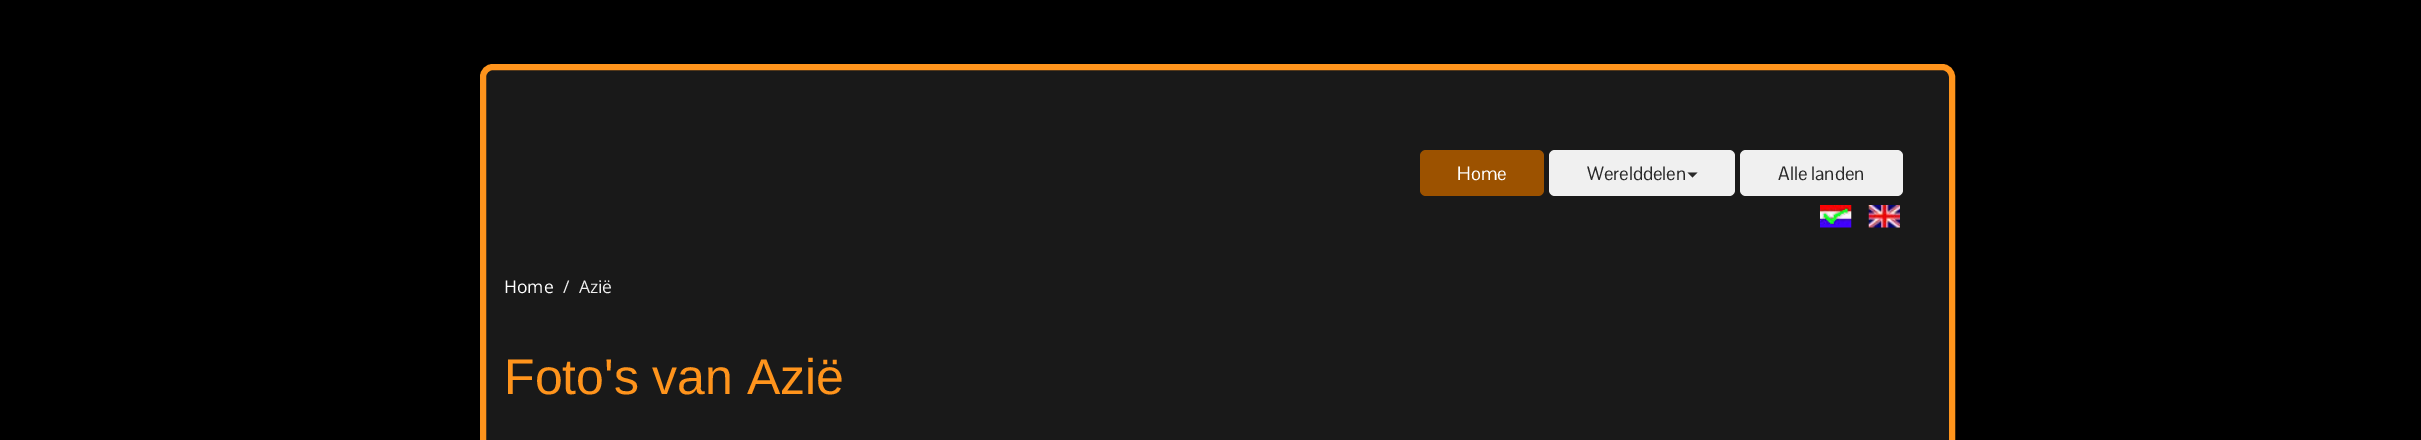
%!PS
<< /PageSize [2421 440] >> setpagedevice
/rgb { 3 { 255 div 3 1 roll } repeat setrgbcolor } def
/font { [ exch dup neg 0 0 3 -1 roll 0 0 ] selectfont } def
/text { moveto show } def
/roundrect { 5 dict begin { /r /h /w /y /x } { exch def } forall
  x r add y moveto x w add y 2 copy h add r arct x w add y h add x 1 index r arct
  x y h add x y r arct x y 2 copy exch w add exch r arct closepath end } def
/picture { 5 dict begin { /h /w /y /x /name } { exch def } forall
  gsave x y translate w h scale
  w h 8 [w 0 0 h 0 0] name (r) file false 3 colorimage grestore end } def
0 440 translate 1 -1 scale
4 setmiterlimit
0 0 0 rgb
0 0 2421 440 rectfill
25 25 25 rgb
483 67 1469 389 10 roundrect gsave fill grestore
255 148 28 rgb
6 setlinewidth
stroke
156 82 0 rgb
1420 150 124 46 6 roundrect fill
240 240 240 rgb
1549 150 186 46 6 roundrect fill
41 41 41 rgb
1687.5 172.5 moveto 10 0 rlineto -5 5 rlineto closepath fill
240 240 240 rgb
1740 150 163 46 6 roundrect fill
(img_01.rgb) 1820 205 32 23 picture
(img_02.rgb) 1868 205 32 23 picture
/PontanoSans-Regular 18.75 font
255 255 255 rgb
(Home) 1457 180 text
41 41 41 rgb
(Werelddelen) 1587 180 text
(Alle landen) 1778 180 text
/OpenSans-Regular 17.5 font
255 255 255 rgb
(Home) 504 293 text
240 240 240 rgb
(/  Azië) 563 293 text
/LiberationSans-Regular 50 font
255 148 28 rgb
(Foto's van Azië) 504 394 text
showpage
